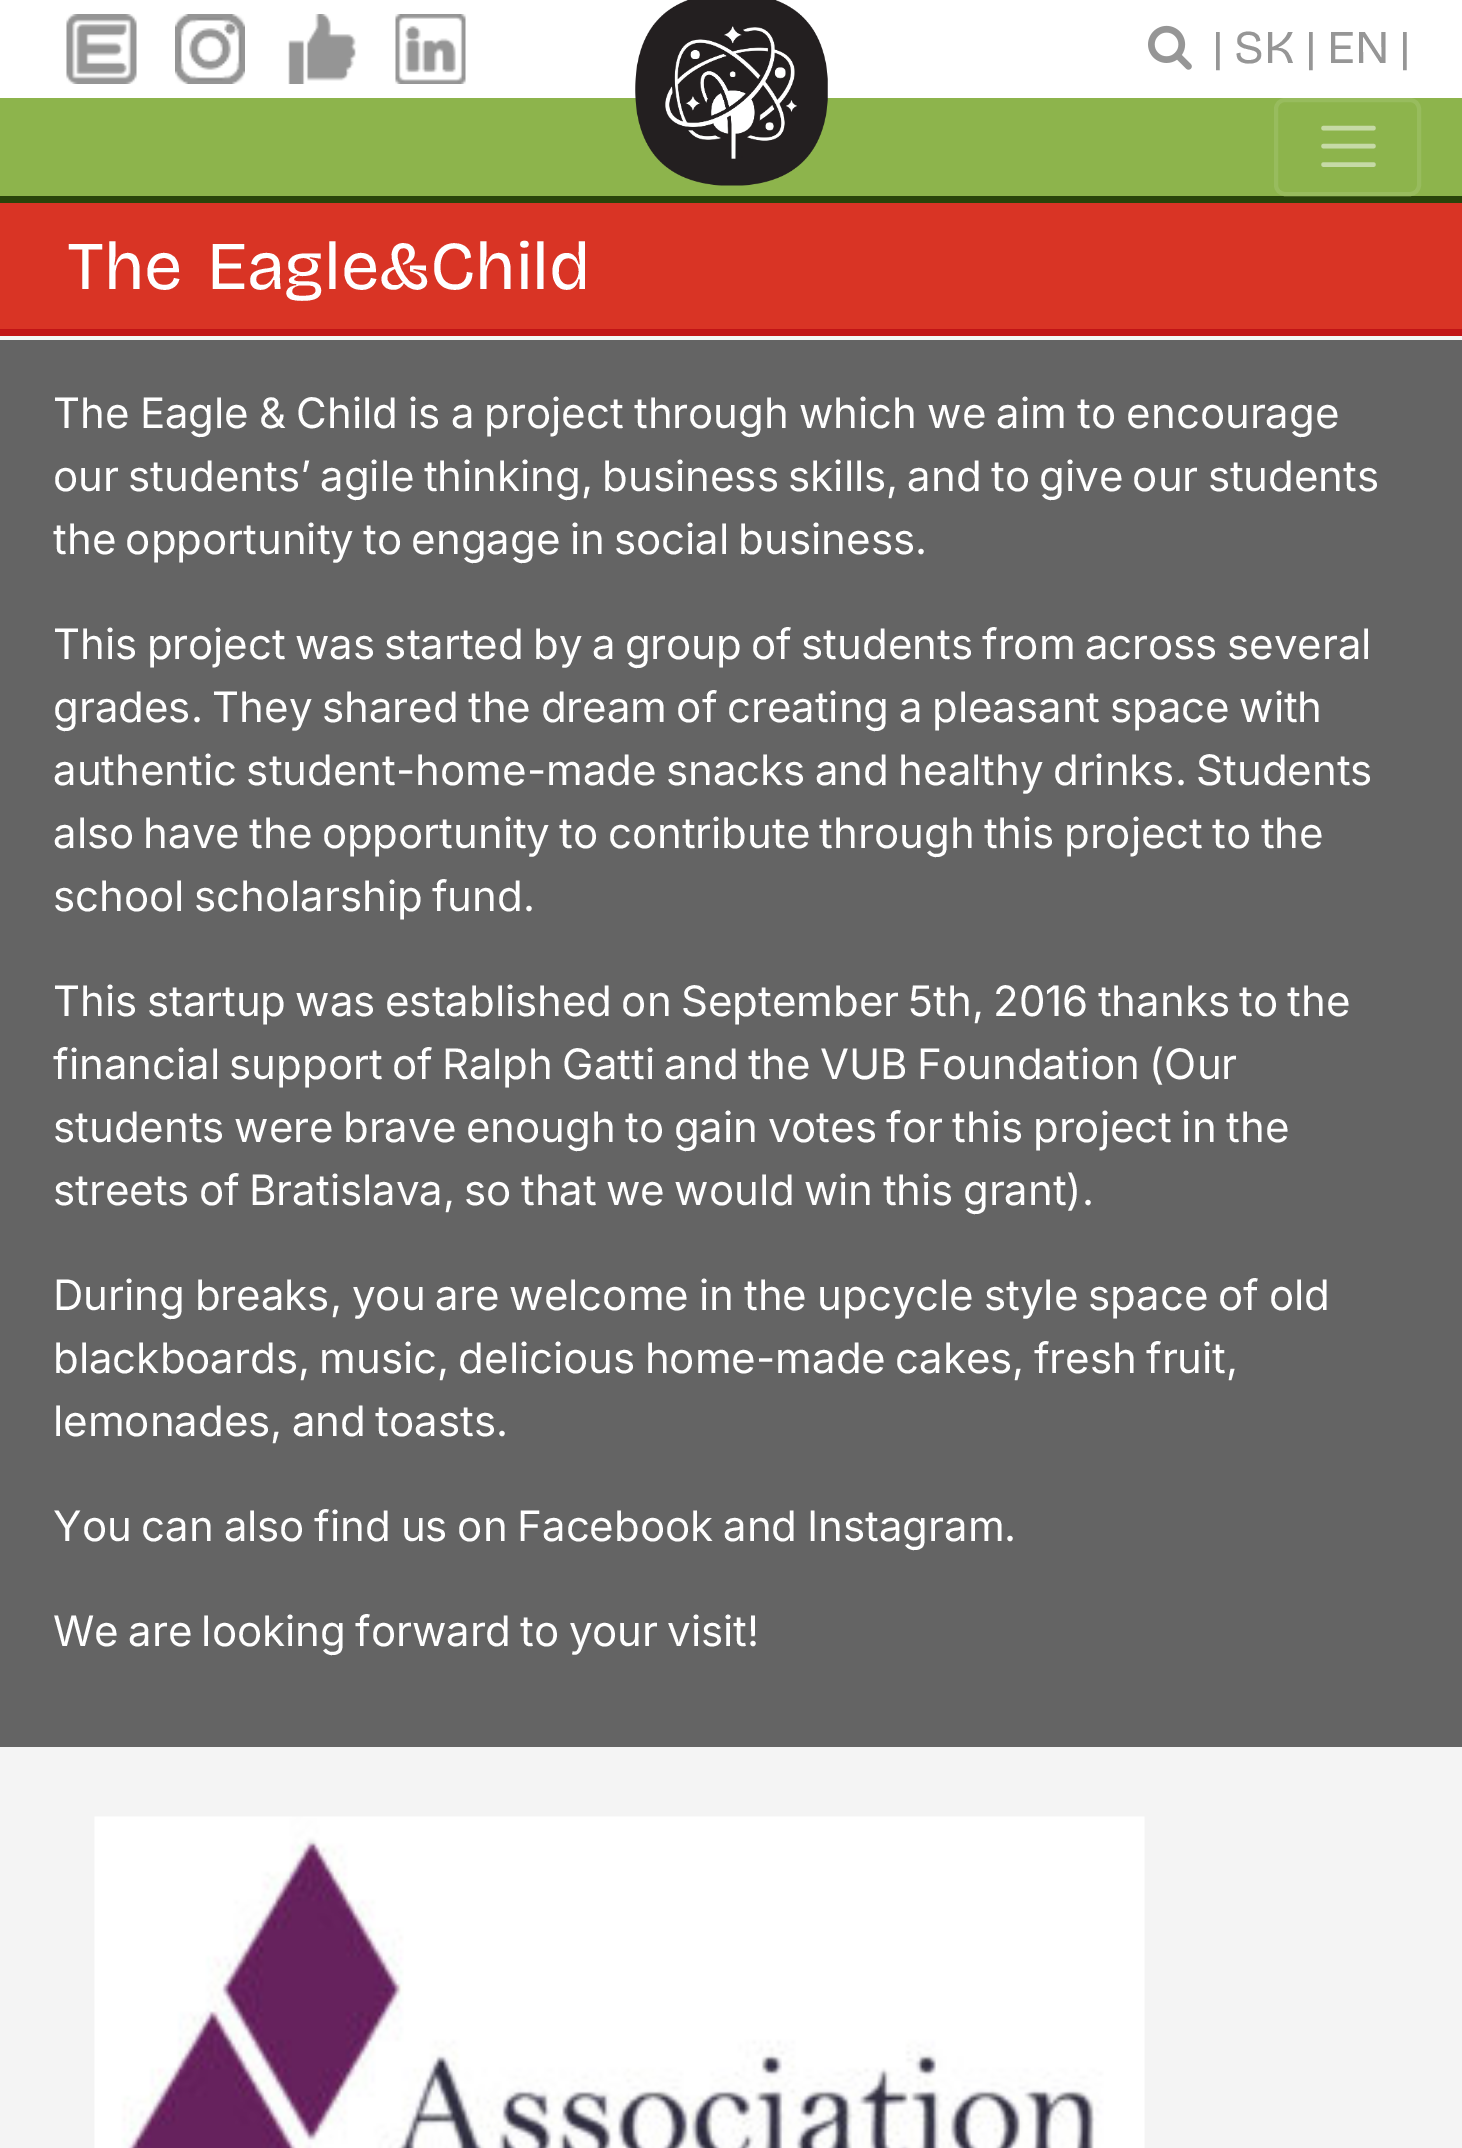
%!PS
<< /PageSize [1462 2148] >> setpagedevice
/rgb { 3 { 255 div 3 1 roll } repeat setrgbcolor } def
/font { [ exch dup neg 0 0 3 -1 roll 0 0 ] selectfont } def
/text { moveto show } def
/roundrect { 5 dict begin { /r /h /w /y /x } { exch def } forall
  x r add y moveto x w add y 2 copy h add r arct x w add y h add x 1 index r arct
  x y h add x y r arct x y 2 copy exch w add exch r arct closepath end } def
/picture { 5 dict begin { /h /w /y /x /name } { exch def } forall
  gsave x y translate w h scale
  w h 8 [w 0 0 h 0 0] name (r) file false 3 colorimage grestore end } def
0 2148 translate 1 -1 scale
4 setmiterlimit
244 244 244 rgb
0 0 1462 2148 rectfill
255 255 255 rgb
0 0 1462 98 rectfill
141 180 76 rgb
0 98 1462 98 rectfill
(img_01.rgb) 635 0 193 186 picture
(img_02.rgb) 66 14 71 70 picture
(img_03.rgb) 175 14 70 70 picture
(img_04.rgb) 288 14 68 70 picture
(img_05.rgb) 395 14 71 70 picture
(img_06.rgb) 1148 25 44 45 picture
41 68 10 rgb
0 196 1462 7 rectfill
152 188 94 rgb
4 setlinewidth
1276 100 143 94 9 roundrect stroke
198 218 166 rgb
4.5 setlinewidth
1 setlinecap
1323.5 128 moveto 50 0 rlineto 1323.5 146 moveto 50 0 rlineto 1323.5 164.5 moveto 50 0 rlineto stroke
217 52 37 rgb
0 203 1462 126 rectfill
194 20 22 rgb
0 329 1462 7 rectfill
100 100 100 rgb
0 340 1462 1407 rectfill
(img_07.rgb) 94 1816 1051 332 picture
/BricolageGrotesque-Regular 47 font
150 150 150 rgb
(|) 1212 63 text
(SK) 1234 63 text
(|) 1305 63 text
(EN) 1327 63 text
(|) 1399 63 text
/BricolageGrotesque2-Regular 68.25 font
255 255 255 rgb
67 289 moveto 7 0 32 (The Eagle&Child) widthshow
/Inter-Regular 42 font
53 428 moveto -1.6 0 32 (The Eagle & Child is a project through which we aim to encourage) widthshow
53 491 moveto -2.5 0 32 (our students’ agile thinking, business skills, and to give our students) widthshow
53 554 moveto -2.5 0 32 (the opportunity to engage in social business.) widthshow
53 659 moveto -2.5 0 32 (This project was started by a group of students from across several) widthshow
53 722 moveto -2.25 0 32 (grades. They shared the dream of creating a pleasant space with) widthshow
53 785 moveto -2.5 0 32 (authentic student-home-made snacks and healthy drinks. Students) widthshow
53 848 moveto -2.5 0 32 (also have the opportunity to contribute through this project to the) widthshow
53 911 moveto -2.5 0 32 (school scholarship fund.) widthshow
53 1016 moveto -2.5 0 32 (This startup was established on September 5th, 2016 thanks to the) widthshow
53 1079 moveto -2.5 0 32 (financial support of Ralph Gatti and the VUB Foundation \(Our) widthshow
53 1142 moveto -2.25 0 32 (students were brave enough to gain votes for this project in the) widthshow
53 1205 moveto -2.5 0 32 (streets of Bratislava, so that we would win this grant\).) widthshow
53 1310 moveto -1.75 0 32 (During breaks, you are welcome in the upcycle style space of old) widthshow
53 1373 moveto -2.5 0 32 (blackboards, music, delicious home-made cakes, fresh fruit,) widthshow
53 1436 moveto -2.5 0 32 (lemonades, and toasts.) widthshow
53 1541 moveto -2 0 32 (You can also find us on Facebook and Instagram.) widthshow
53 1646 moveto -2.5 0 32 (We are looking forward to your visit!) widthshow
showpage
